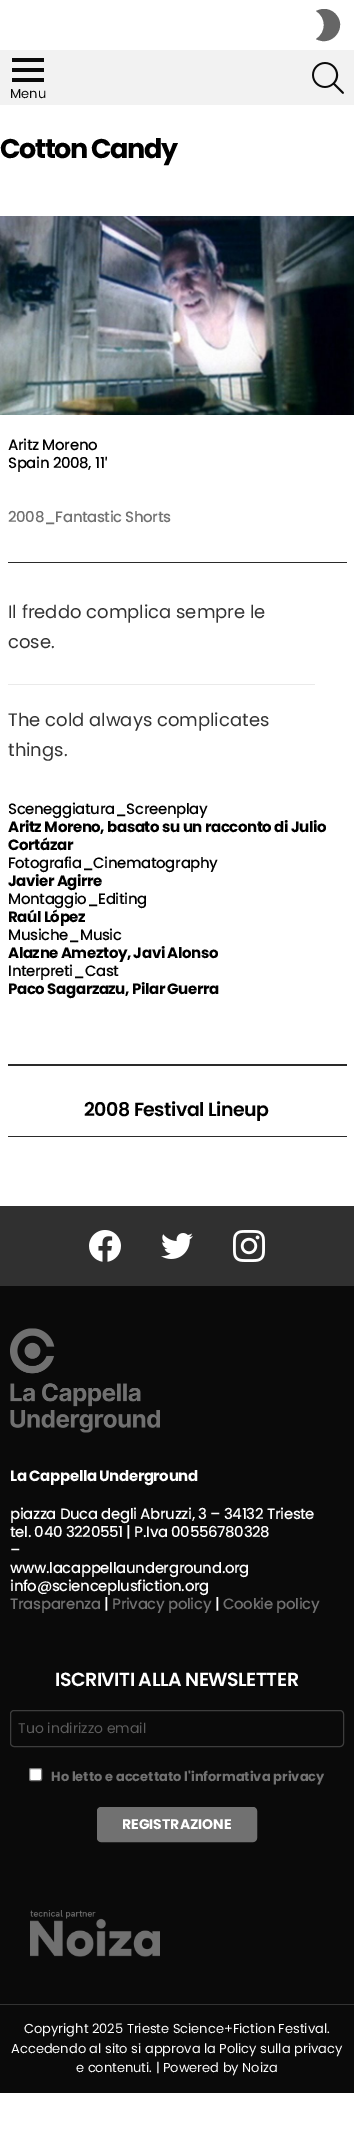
%!PS
<< /PageSize [354 2138] >> setpagedevice
/rgb { 3 { 255 div 3 1 roll } repeat setrgbcolor } def
/font { [ exch dup neg 0 0 3 -1 roll 0 0 ] selectfont } def
/text { moveto show } def
/roundrect { 5 dict begin { /r /h /w /y /x } { exch def } forall
  x r add y moveto x w add y 2 copy h add r arct x w add y h add x 1 index r arct
  x y h add x y r arct x y 2 copy exch w add exch r arct closepath end } def
/picture { 5 dict begin { /h /w /y /x /name } { exch def } forall
  gsave x y translate w h scale
  w h 8 [w 0 0 h 0 0] name (r) file false 3 colorimage grestore end } def
0 2138 translate 1 -1 scale
4 setmiterlimit
255 255 255 rgb
0 0 354 2138 rectfill
102 102 102 rgb
324 9 moveto -3 0 -5.5 1 -8 2 rcurveto 10.5 6.5 10.5 21.5 0 28 rcurveto 16.5 9 33 -13 18.5 -26 rcurveto -2.5 -2.5 -6.5 -4 -10.5 -4 rcurveto closepath fill
242 242 242 rgb
0 50 354 55 rectfill
(img_01.rgb) 12 58 32 24 picture
(img_02.rgb) 312 62 32 32 picture
(img_03.rgb) 0 216 354 199 picture
42 42 42 rgb
8 562 339 1 rectfill
234 234 234 rgb
8 684 307 1 rectfill
42 42 42 rgb
8 1064 339 2 rectfill
8 1136 339 1 rectfill
48 48 48 rgb
0 1206 354 80 rectfill
(img_04.rgb) 89 1230 32 32 picture
(img_05.rgb) 161 1233 32 26 picture
(img_06.rgb) 233 1230 32 32 picture
10 10 10 rgb
0 1286 354 718 rectfill
(img_07.rgb) 10 1328 150 105 picture
61 61 61 rgb
10.5 1710.5 333 36 3.5 roundrect stroke
255 255 255 rgb
29.5 1768.5 12 12 1.5 roundrect gsave fill grestore
118 118 118 rgb
stroke
113 113 113 rgb
98 1808 158 33 3 roundrect gsave fill grestore
2 setlinewidth
stroke
(img_08.rgb) 30 1910 130 47 picture
51 51 51 rgb
0 2004 354 1 rectfill
10 10 10 rgb
0 2005 354 88 rectfill
/Poppins-Regular 13 font
(Menu) 10 98 text
/Poppins-Bold 27 font
0 0 0 rgb
0 158 moveto -1.4 0 (Cotton Candy) ashow
/Poppins-Medium 15 font
8 450 moveto -0.4 0 (Aritz Moreno) ashow
8 468 moveto -0.4 0 (Spain 2008, 11) ashow
/Roboto-Medium 15 font
105 468 moveto -0.4 0 (′) ashow
/Poppins-Medium 15 font
113 113 113 rgb
8 522 moveto -0.4 0 (2008_Fantastic Shorts) ashow
/Poppins-Regular 18 font
51 51 51 rgb
(Il freddo complica sempre le) 8 618 text
(cose.) 8 648 text
(The cold always complicates) 8 726 text
(things.) 8 756 text
/Poppins-Medium 15 font
0 0 0 rgb
8 814 moveto -0.4 0 (Sceneggiatura_Screenplay) ashow
/Poppins-Bold 15 font
8 832 moveto -0.4 0 (Aritz Moreno, basato su un racconto di Julio) ashow
8 850 moveto -0.4 0 (Cortázar) ashow
/Poppins-Medium 15 font
8 868 moveto -0.4 0 (Fotografia_Cinematography) ashow
/Poppins-Bold 15 font
8 886 moveto -0.4 0 (Javier Agirre) ashow
/Poppins-Medium 15 font
8 904 moveto -0.4 0 (Montaggio_Editing) ashow
/Poppins-Bold 15 font
8 922 moveto -0.4 0 (Raúl López) ashow
/Poppins-Medium 15 font
8 940 moveto -0.4 0 (Musiche_Music) ashow
/Poppins-Bold 15 font
8 958 moveto -0.4 0 (Alazne Ameztoy, Javi Alonso) ashow
/Poppins-Medium 15 font
8 976 moveto -0.4 0 (Interpreti_Cast) ashow
/Poppins-Bold 15 font
8 994 moveto -0.4 0 (Paco Sagarzazu, Pilar Guerra) ashow
/Poppins-SemiBold 19 font
84 1116 moveto -0.5 0 (2008 Festival Lineup) ashow
/Poppins-Bold 15 font
255 255 255 rgb
10 1481 moveto -0.4 0 (La Cappella Underground) ashow
/Poppins-Medium 15 font
10 1519 moveto -0.4 0 (piazza Duca degli Abruzzi, 3 – 34132 Trieste) ashow
10 1537 moveto -0.4 0 (tel. 040 3220551 | P.Iva 00556780328) ashow
10 1555 moveto -0.4 0 (–) ashow
10 1573 moveto -0.4 0 (www.lacappellaunderground.org) ashow
10 1591 moveto -0.4 0 (info@scienceplusfiction.org) ashow
113 113 113 rgb
10 1609 moveto -0.4 0 (Trasparenza) ashow
255 255 255 rgb
104 1609 moveto -0.4 0 (|) ashow
113 113 113 rgb
112 1609 moveto -0.4 0 (Privacy policy) ashow
255 255 255 rgb
215 1609 moveto -0.4 0 (|) ashow
113 113 113 rgb
223 1609 moveto -0.4 0 (Cookie policy) ashow
/Poppins-SemiBold 19 font
255 255 255 rgb
55 1686 moveto -0.5 0 (ISCRIVITI ALLA NEWSLETTER) ashow
/Poppins-Regular 14 font
91 91 91 rgb
(Tuo indirizzo email) 18 1733 text
/Poppins-Bold 13 font
113 113 113 rgb
(Ho letto e accettato l'informativa privacy) 51 1781 text
/Poppins-Bold 14 font
255 255 255 rgb
(REGISTRAZIONE) 122 1829 text
/Poppins-Regular 13 font
(Copyright 2025 Trieste Science+Fiction Festival.) 24 2033 text
(Accedendo al sito si approva la Policy sulla privacy) 11 2053 text
(e contenuti. | Powered by Noiza) 76 2072 text
showpage
